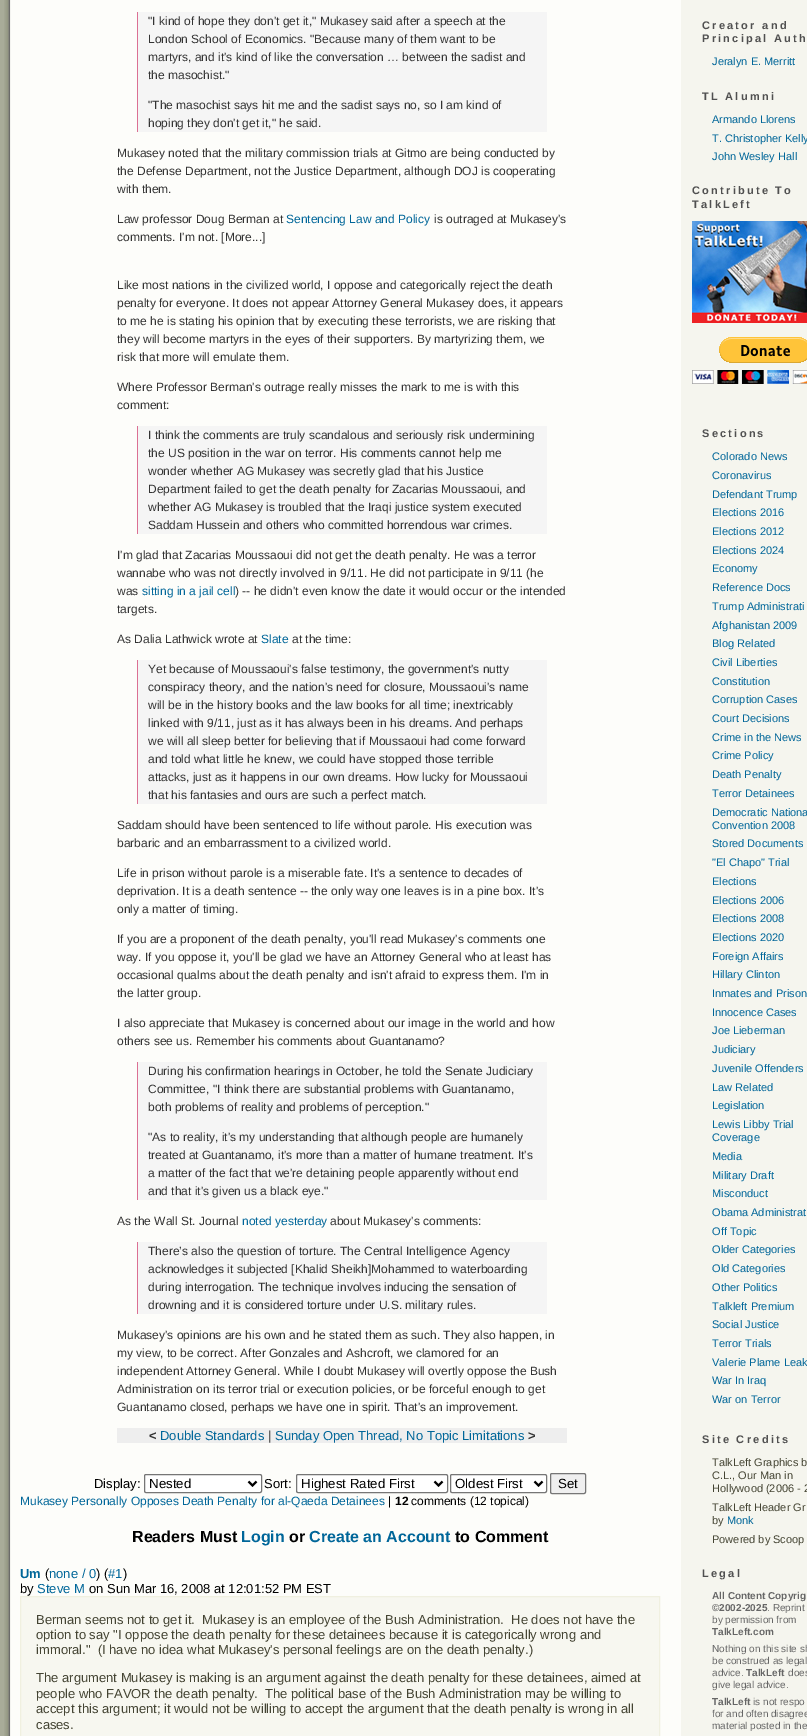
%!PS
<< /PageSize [807 1736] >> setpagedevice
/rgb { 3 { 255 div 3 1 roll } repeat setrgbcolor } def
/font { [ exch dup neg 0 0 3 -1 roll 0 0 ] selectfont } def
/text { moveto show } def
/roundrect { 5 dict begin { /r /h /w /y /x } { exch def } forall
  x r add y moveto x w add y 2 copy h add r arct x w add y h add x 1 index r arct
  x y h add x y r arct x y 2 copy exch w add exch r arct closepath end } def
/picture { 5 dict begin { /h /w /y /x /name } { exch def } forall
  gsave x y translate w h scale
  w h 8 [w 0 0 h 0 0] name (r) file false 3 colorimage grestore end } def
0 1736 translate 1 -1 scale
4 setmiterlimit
169 172 153 rgb
0 0 807 1736 rectfill
(img_01.rgb) 4 0 803 1736 picture
245 245 245 rgb
138 12 409 120 rectfill
219 112 147 rgb
137 12 1 120 rectfill
245 245 245 rgb
138 426 409 108 rectfill
219 112 147 rgb
137 426 1 108 rectfill
245 245 245 rgb
138 660 409 144 rectfill
219 112 147 rgb
137 660 1 144 rectfill
245 245 245 rgb
138 1062 409 138 rectfill
219 112 147 rgb
137 1062 1 138 rectfill
245 245 245 rgb
138 1242 409 72 rectfill
219 112 147 rgb
137 1242 1 72 rectfill
238 238 238 rgb
117 1428 450 15 rectfill
(img_02.rgb) 692 221 115 102 picture
(img_03.rgb) 692 337 115 47 picture
255 255 255 rgb
144.5 1474.5 117 18 1.5 roundrect gsave fill grestore
118 118 118 rgb
stroke
0 0 0 rgb
2 setlinewidth
248.5 1481.5 moveto 4 4 rlineto 4 -4 rlineto stroke
255 255 255 rgb
296.5 1474.5 151 18 1.5 roundrect gsave fill grestore
118 118 118 rgb
1 setlinewidth
stroke
0 0 0 rgb
2 setlinewidth
434.5 1481.5 moveto 4 4 rlineto 4 -4 rlineto stroke
255 255 255 rgb
450.5 1474.5 96 18 1.5 roundrect gsave fill grestore
118 118 118 rgb
1 setlinewidth
stroke
0 0 0 rgb
2 setlinewidth
534.5 1481.5 moveto 4 4 rlineto 4 -4 rlineto stroke
239 239 239 rgb
550.5 1473.5 35 20 1.5 roundrect gsave fill grestore
118 118 118 rgb
1 setlinewidth
stroke
247 247 240 rgb
20.5 1596.5 moveto 639 0 rlineto 0 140 rlineto -639 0 rlineto closepath gsave fill grestore
240 240 224 rgb
stroke
/LiberationSans-Regular 12 font
51 51 51 rgb
("I kind of hope they don't get it," Mukasey said after a speech at the) 148 25 text
(London School of Economics. "Because many of them want to be) 148 43 text
(martyrs, and it's kind of like the conversation … between the sadist and) 148 61 text
(the masochist.") 148 79 text
("The masochist says hit me and the sadist says no, so I am kind of) 148 109 text
(hoping they don't get it," he said.) 148 127 text
(Mukasey noted that the military commission trials at Gitmo are being conducted by) 117 157 text
(the Defense Department, not the Justice Department, although DOJ is cooperating) 117 175 text
(with them.) 117 193 text
(Law professor Doug Berman at) 117 223 text
0 102 153 rgb
(Sentencing Law and Policy) 286 223 text
51 51 51 rgb
(is outraged at Mukasey's) 434 223 text
(comments. I'm not. [More...]) 117 241 text
(Like most nations in the civilized world, I oppose and categorically reject the death) 117 289 text
(penalty for everyone. It does not appear Attorney General Mukasey does, it appears) 117 307 text
(to me he is stating his opinion that by executing these terrorists, we are risking that) 117 325 text
(they will become martyrs in the eyes of their supporters. By martyrizing them, we) 117 343 text
(risk that more will emulate them.) 117 361 text
(Where Professor Berman's outrage really misses the mark to me is with this) 117 391 text
(comment:) 117 409 text
(I think the comments are truly scandalous and seriously risk undermining) 148 439 text
(the US position in the war on terror. His comments cannot help me) 148 457 text
(wonder whether AG Mukasey was secretly glad that his Justice) 148 475 text
(Department failed to get the death penalty for Zacarias Moussaoui, and) 148 493 text
(whether AG Mukasey is troubled that the Iraqi justice system executed) 148 511 text
(Saddam Hussein and others who committed horrendous war crimes.) 148 529 text
(I'm glad that Zacarias Moussaoui did not get the death penalty. He was a terror) 117 559 text
(wannabe who was not directly involved in 9/11. He did not participate in 9/11 \(he) 117 577 text
(was) 117 595 text
0 102 153 rgb
(sitting in a jail cell) 142 595 text
51 51 51 rgb
(\) -- he didn't even know the date it would occur or the intended) 235 595 text
(targets.) 117 613 text
(As Dalia Lathwick wrote at) 117 643 text
0 102 153 rgb
(Slate) 261 643 text
51 51 51 rgb
(at the time:) 292 643 text
(Yet because of Moussaoui's false testimony, the government's nutty) 148 673 text
(conspiracy theory, and the nation's need for closure, Moussaoui's name) 148 691 text
(will be in the history books and the law books for all time; inextricably) 148 709 text
(linked with 9/11, just as it has always been in his dreams. And perhaps) 148 727 text
(we will all sleep better for believing that if Moussaoui had come forward) 148 745 text
(and told what little he knew, we could have stopped those terrible) 148 763 text
(attacks, just as it happens in our own dreams. How lucky for Moussaoui) 148 781 text
(that his fantasies and ours are such a perfect match.) 148 799 text
(Saddam should have been sentenced to life without parole. His execution was) 117 829 text
(barbaric and an embarrassment to a civilized world.) 117 847 text
(Life in prison without parole is a miserable fate. It's a sentence to decades of) 117 877 text
(deprivation. It is a death sentence -- the only way one leaves is in a pine box. It's) 117 895 text
(only a matter of timing.) 117 913 text
(If you are a proponent of the death penalty, you'll read Mukasey's comments one) 117 943 text
(way. If you oppose it, you'll be glad we have an Attorney General who at least has) 117 961 text
(occasional qualms about the death penalty and isn't afraid to express them. I'm in) 117 979 text
(the latter group.) 117 997 text
(I also appreciate that Mukasey is concerned about our image in the world and how) 117 1027 text
(others see us. Remember his comments about Guantanamo?) 117 1045 text
(During his confirmation hearings in October, he told the Senate Judiciary) 148 1075 text
(Committee, "I think there are substantial problems with Guantanamo,) 148 1093 text
(both problems of reality and problems of perception.") 148 1111 text
("As to reality, it's my understanding that although people are humanely) 148 1141 text
(treated at Guantanamo, it's more than a matter of humane treatment. It's) 148 1159 text
(a matter of the fact that we're detaining people apparently without end) 148 1177 text
(and that it's given us a black eye.") 148 1195 text
(As the Wall St. Journal) 117 1225 text
0 102 153 rgb
(noted yesterday) 242 1225 text
51 51 51 rgb
(about Mukasey's comments:) 330 1225 text
(There’s also the question of torture. The Central Intelligence Agency) 148 1255 text
(acknowledges it subjected [Khalid Sheikh]Mohammed to waterboarding) 148 1273 text
(during interrogation. The technique involves inducing the sensation of) 148 1291 text
(drowning and it is considered torture under U.S. military rules.) 148 1309 text
(Mukasey's opinions are his own and he stated them as such. They also happen, in) 117 1339 text
(my view, to be correct. After Gonzales and Ashcroft, we clamored for an) 117 1357 text
(independent Attorney General. While I doubt Mukasey will overtly oppose the Bush) 117 1375 text
(Administration on its terror trial or execution policies, or be forceful enough to get) 117 1393 text
(Guantanamo closed, perhaps we have one in spirit. That's an improvement.) 117 1411 text
/LiberationSans-Bold 13 font
(<) 149 1440 text
/LiberationSans-Regular 13 font
0 102 153 rgb
(Double Standards) 160 1440 text
51 51 51 rgb
(|) 268 1440 text
0 102 153 rgb
(Sunday Open Thread, No Topic Limitations) 275 1440 text
/LiberationSans-Bold 13 font
51 51 51 rgb
(>) 528 1440 text
/LiberationSans-Bold 11 font
80 80 80 rgb
702 29 moveto 2.25 0 (Creator and) ashow
702 42 moveto 2.25 0 (Principal Auth) ashow
/LiberationSans-Regular 11 font
0 102 153 rgb
(Jeralyn E. Merritt) 712 65 text
/LiberationSans-Bold 11 font
80 80 80 rgb
702 100 moveto 2.25 0 (TL Alumni) ashow
/LiberationSans-Regular 11 font
0 102 153 rgb
(Armando Llorens) 712 123 text
(T. Christopher Kelly) 712 142 text
(John Wesley Hall) 712 160 text
/LiberationSans-Bold 11 font
80 80 80 rgb
692 194 moveto 2.25 0 (Contribute To) ashow
692 208 moveto 2.25 0 (TalkLeft) ashow
702 437 moveto 2.25 0 (Sections) ashow
/LiberationSans-Regular 11 font
0 102 153 rgb
(Colorado News) 712 460 text
(Coronavirus) 712 479 text
(Defendant Trump) 712 498 text
(Elections 2016) 712 516 text
(Elections 2012) 712 535 text
(Elections 2024) 712 554 text
(Economy) 712 572 text
(Reference Docs) 712 591 text
(Trump Administrati) 712 610 text
(Afghanistan 2009) 712 629 text
(Blog Related) 712 647 text
(Civil Liberties) 712 666 text
(Constitution) 712 685 text
(Corruption Cases) 712 703 text
(Court Decisions) 712 722 text
(Crime in the News) 712 741 text
(Crime Policy) 712 759 text
(Death Penalty) 712 778 text
(Terror Detainees) 712 797 text
(Democratic Nationa) 712 816 text
(Convention 2008) 712 829 text
(Stored Documents) 712 847 text
("El Chapo" Trial) 712 866 text
(Elections) 712 885 text
(Elections 2006) 712 904 text
(Elections 2008) 712 922 text
(Elections 2020) 712 941 text
(Foreign Affairs) 712 960 text
(Hillary Clinton) 712 978 text
(Inmates and Prison) 712 997 text
(Innocence Cases) 712 1016 text
(Joe Lieberman) 712 1034 text
(Judiciary) 712 1053 text
(Juvenile Offenders) 712 1072 text
(Law Related) 712 1091 text
(Legislation) 712 1109 text
(Lewis Libby Trial) 712 1128 text
(Coverage) 712 1141 text
(Media) 712 1160 text
(Military Draft) 712 1179 text
(Misconduct) 712 1197 text
(Obama Administrat) 712 1216 text
(Off Topic) 712 1235 text
(Older Categories) 712 1253 text
(Old Categories) 712 1272 text
(Other Politics) 712 1291 text
(Talkleft Premium) 712 1310 text
(Social Justice) 712 1328 text
(Terror Trials) 712 1347 text
(Valerie Plame Leak) 712 1366 text
(War In Iraq) 712 1384 text
(War on Terror) 712 1403 text
/LiberationSans-Bold 11 font
80 80 80 rgb
702 1443 moveto 2.25 0 (Site Credits) ashow
/LiberationSans-Regular 11 font
68 68 51 rgb
(TalkLeft Graphics b) 712 1466 text
(C.L., Our Man in) 712 1479 text
(Hollywood \(2006 - 2) 712 1492 text
(TalkLeft Header Gr) 712 1511 text
(by) 712 1524 text
0 102 153 rgb
(Monk) 727 1524 text
68 68 51 rgb
(Powered by Scoop) 712 1543 text
/LiberationSans-Bold 11 font
80 80 80 rgb
702 1577 moveto 2.25 0 (Legal) ashow
/LiberationSans-Bold 10 font
102 102 102 rgb
(All Content Copyrig) 712 1599 text
(©2002-2025) 712 1611 text
/LiberationSans-Regular 10 font
(. Reprint) 767 1611 text
(by permission from) 712 1623 text
/LiberationSans-Bold 10 font
(TalkLeft.com) 712 1635 text
/LiberationSans-Regular 10 font
(Nothing on this site sh) 712 1652 text
(be construed as legal) 712 1664 text
(advice.) 712 1676 text
/LiberationSans-Bold 10 font
(TalkLeft) 746 1676 text
/LiberationSans-Regular 10 font
(does) 788 1676 text
(give legal advice.) 712 1688 text
/LiberationSans-Bold 10 font
(TalkLeft) 712 1705 text
/LiberationSans-Regular 10 font
(is not respo) 753 1705 text
(for and often disagree) 712 1717 text
(material posted in the) 712 1729 text
/LiberationSans-Regular 13 font
0 0 0 rgb
(Display:) 94 1488 text
/LiberationSans-Regular 13.25 font
(Nested) 149 1488 text
/LiberationSans-Regular 13 font
(Sort:) 264 1488 text
/LiberationSans-Regular 13.25 font
(Highest Rated First) 301 1488 text
(Oldest First) 455 1488 text
(Set) 558 1488 text
/LiberationSans-Regular 12 font
0 102 153 rgb
(Mukasey Personally Opposes Death Penalty for al-Qaeda Detainees) 20 1505 text
0 0 0 rgb
(|) 388 1505 text
/LiberationSans-Bold 12 font
(12) 395 1505 text
/LiberationSans-Regular 12 font
(comments \(12 topical\)) 411 1505 text
/LiberationSans-Bold 16 font
(Readers Must) 132 1542 text
0 102 153 rgb
(Login) 241 1542 text
0 0 0 rgb
(or) 289 1542 text
0 102 153 rgb
(Create an Account) 309 1542 text
0 0 0 rgb
(to Comment) 455 1542 text
/LiberationSans-Bold 13 font
0 102 153 rgb
(Um) 20 1578 text
/LiberationSans-Regular 13 font
0 0 0 rgb
(\() 45 1578 text
0 102 153 rgb
(none / 0) 49 1578 text
0 0 0 rgb
(\) \() 96 1578 text
0 102 153 rgb
(#1) 108 1578 text
0 0 0 rgb
(\)) 123 1578 text
(by) 20 1593 text
0 102 153 rgb
(Steve M) 37 1593 text
0 0 0 rgb
(on Sun Mar 16, 2008 at 12:01:52 PM EST) 89 1593 text
68 68 51 rgb
(Berman seems not to get it.  Mukasey is an employee of the Bush Administration.  He does not have the) 36 1624 text
(option to say "I oppose the death penalty for these detainees because it is categorically wrong and) 36 1639 text
(immoral."  \(I have no idea what Mukasey's personal feelings are on the death penalty.\)) 36 1654 text
(The argument Mukasey is making is an argument against the death penalty for these detainees, aimed at) 36 1682 text
(people who FAVOR the death penalty.  The political base of the Bush Administration may be willing to) 36 1698 text
(accept this argument; it would not be willing to accept the argument that the death penalty is wrong in all) 36 1713 text
(cases.) 36 1729 text
showpage
